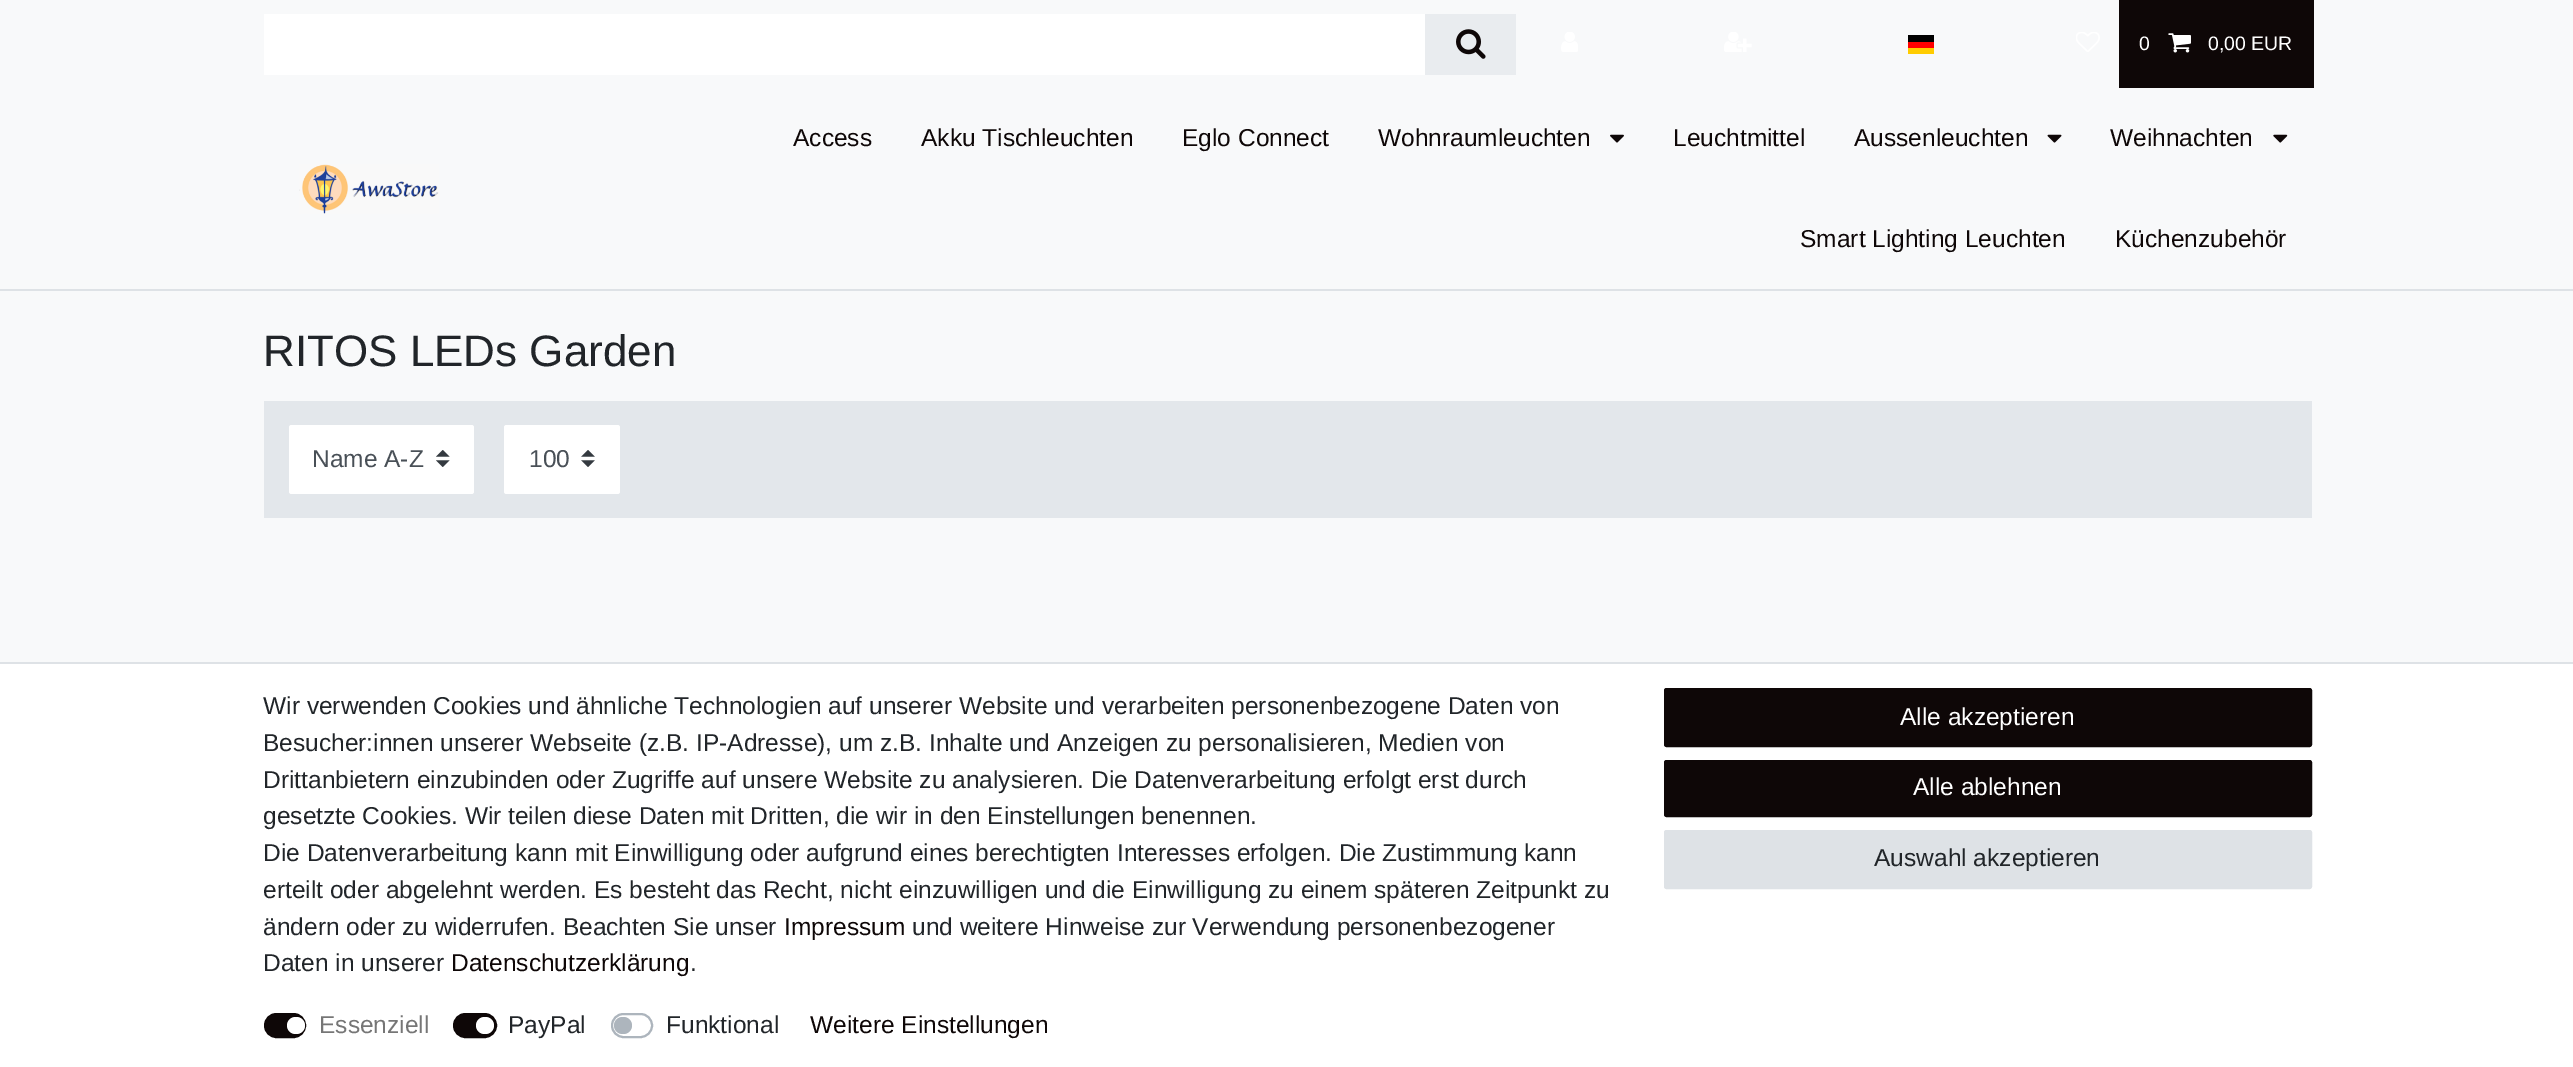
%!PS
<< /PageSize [2573 1067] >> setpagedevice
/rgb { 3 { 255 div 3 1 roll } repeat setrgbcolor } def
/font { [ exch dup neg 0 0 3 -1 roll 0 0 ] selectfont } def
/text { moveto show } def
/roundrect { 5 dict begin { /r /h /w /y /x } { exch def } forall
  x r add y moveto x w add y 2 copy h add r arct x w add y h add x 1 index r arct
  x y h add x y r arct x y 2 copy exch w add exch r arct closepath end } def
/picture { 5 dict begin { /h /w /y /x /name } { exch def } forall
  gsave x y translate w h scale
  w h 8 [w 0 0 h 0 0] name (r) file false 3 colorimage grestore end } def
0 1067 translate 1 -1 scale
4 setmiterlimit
248 249 250 rgb
0 0 2573 1067 rectfill
255 255 255 rgb
264 14 1161 61 rectfill
233 236 239 rgb
1425 14 91 61 rectfill
(img_01.rgb) 1456 29 30 30 picture
(img_02.rgb) 1561 32 17 20 picture
(img_03.rgb) 1724 32 28 20 picture
255 204 0 rgb
1908 48 26 6 rectfill
0 0 0 rgb
1908 35 26 7 rectfill
255 0 0 rgb
1908 42 26 6 rectfill
(img_04.rgb) 2076 32 24 20 picture
14 7 7 rgb
2119 0 195 88 rectfill
(img_05.rgb) 2168 33 23 20 picture
222 226 230 rgb
0 289 2573 2 rectfill
(img_06.rgb) 299 164 140 50 picture
(img_07.rgb) 1610 134 14 9 picture
(img_08.rgb) 2047 134 15 9 picture
(img_09.rgb) 2273 134 15 9 picture
227 231 235 rgb
264 401 2048 117 rectfill
255 255 255 rgb
289 425 185 69 2.5 roundrect fill
(img_10.rgb) 436 450 14 17 picture
504 425 116 69 2.5 roundrect fill
(img_11.rgb) 581 450 14 17 picture
0 664 2573 403 rectfill
222 226 230 rgb
0 662 2573 2 rectfill
14 7 7 rgb
265 1014 40 23 11.5 roundrect gsave fill grestore
2 setlinewidth
stroke
255 255 255 rgb
287 1017 18 17 8.5 roundrect fill
14 7 7 rgb
454 1014 42 23 11.5 roundrect gsave fill grestore
stroke
255 255 255 rgb
476 1017 18 17 8.5 roundrect fill
173 181 189 rgb
612 1014 40 23 11.5 roundrect stroke
614 1017 18 17 8.5 roundrect fill
14 7 7 rgb
1665 689 646 57 1.5 roundrect gsave fill grestore
stroke
1665 761 646 55 1.5 roundrect gsave fill grestore
stroke
222 226 230 rgb
1665 831 646 57 1.5 roundrect gsave fill grestore
stroke
/LiberationSans-Regular 19.5 font
255 255 255 rgb
(0) 2139 50 text
(0,00 EUR) 2208 50 text
/LiberationSans-Regular 24.5 font
14 7 7 rgb
(Access) 793 146 text
(Akku Tischleuchten) 921 146 text
(Eglo Connect) 1182 146 text
(Wohnraumleuchten) 1378 146 text
(Leuchtmittel) 1673 146 text
(Aussenleuchten) 1854 146 text
(Weihnachten) 2110 146 text
(Smart Lighting Leuchten) 1800 247 text
(Küchenzubehör) 2115 247 text
/LiberationSans-Regular 44 font
33 37 41 rgb
(RITOS LEDs Garden) 263 366 text
/LiberationSans-Regular 24.5 font
73 80 87 rgb
(Name A-Z) 312 467 text
(100) 529 467 text
33 37 41 rgb
(Wir verwenden Cookies und ähnliche Technologien auf unserer Website und verarbeiten personenbezogene Daten von) 263 714 text
(Besucher:innen unserer Webseite \(z.B. IP-Adresse\), um z.B. Inhalte und Anzeigen zu personalisieren, Medien von) 263 751 text
(Drittanbietern einzubinden oder Zugriffe auf unsere Website zu analysieren. Die Datenverarbeitung erfolgt erst durch) 263 788 text
(gesetzte Cookies. Wir teilen diese Daten mit Dritten, die wir in den Einstellungen benennen.) 263 824 text
(Die Datenverarbeitung kann mit Einwilligung oder aufgrund eines berechtigten Interesses erfolgen. Die Zustimmung kann) 263 861 text
(erteilt oder abgelehnt werden. Es besteht das Recht, nicht einzuwilligen und die Einwilligung zu einem späteren Zeitpunkt zu) 263 898 text
(ändern oder zu widerrufen. Beachten Sie unser) 263 935 text
14 7 7 rgb
(Impressum) 784 935 text
33 37 41 rgb
(und weitere Hinweise zur Verwendung personenbezogener) 912 935 text
(Daten in unserer) 263 971 text
14 7 7 rgb
(Datenschutzerklärung) 451 971 text
33 37 41 rgb
(.) 690 971 text
118 118 118 rgb
(Essenziell) 319 1033 text
33 37 41 rgb
(PayPal) 508 1033 text
(Funktional) 666 1033 text
14 7 7 rgb
(Weitere Einstellungen) 810 1033 text
255 255 255 rgb
(Alle akzeptieren) 1900 725 text
(Alle ablehnen) 1913 795 text
33 37 41 rgb
(Auswahl akzeptieren) 1874 866 text
showpage
